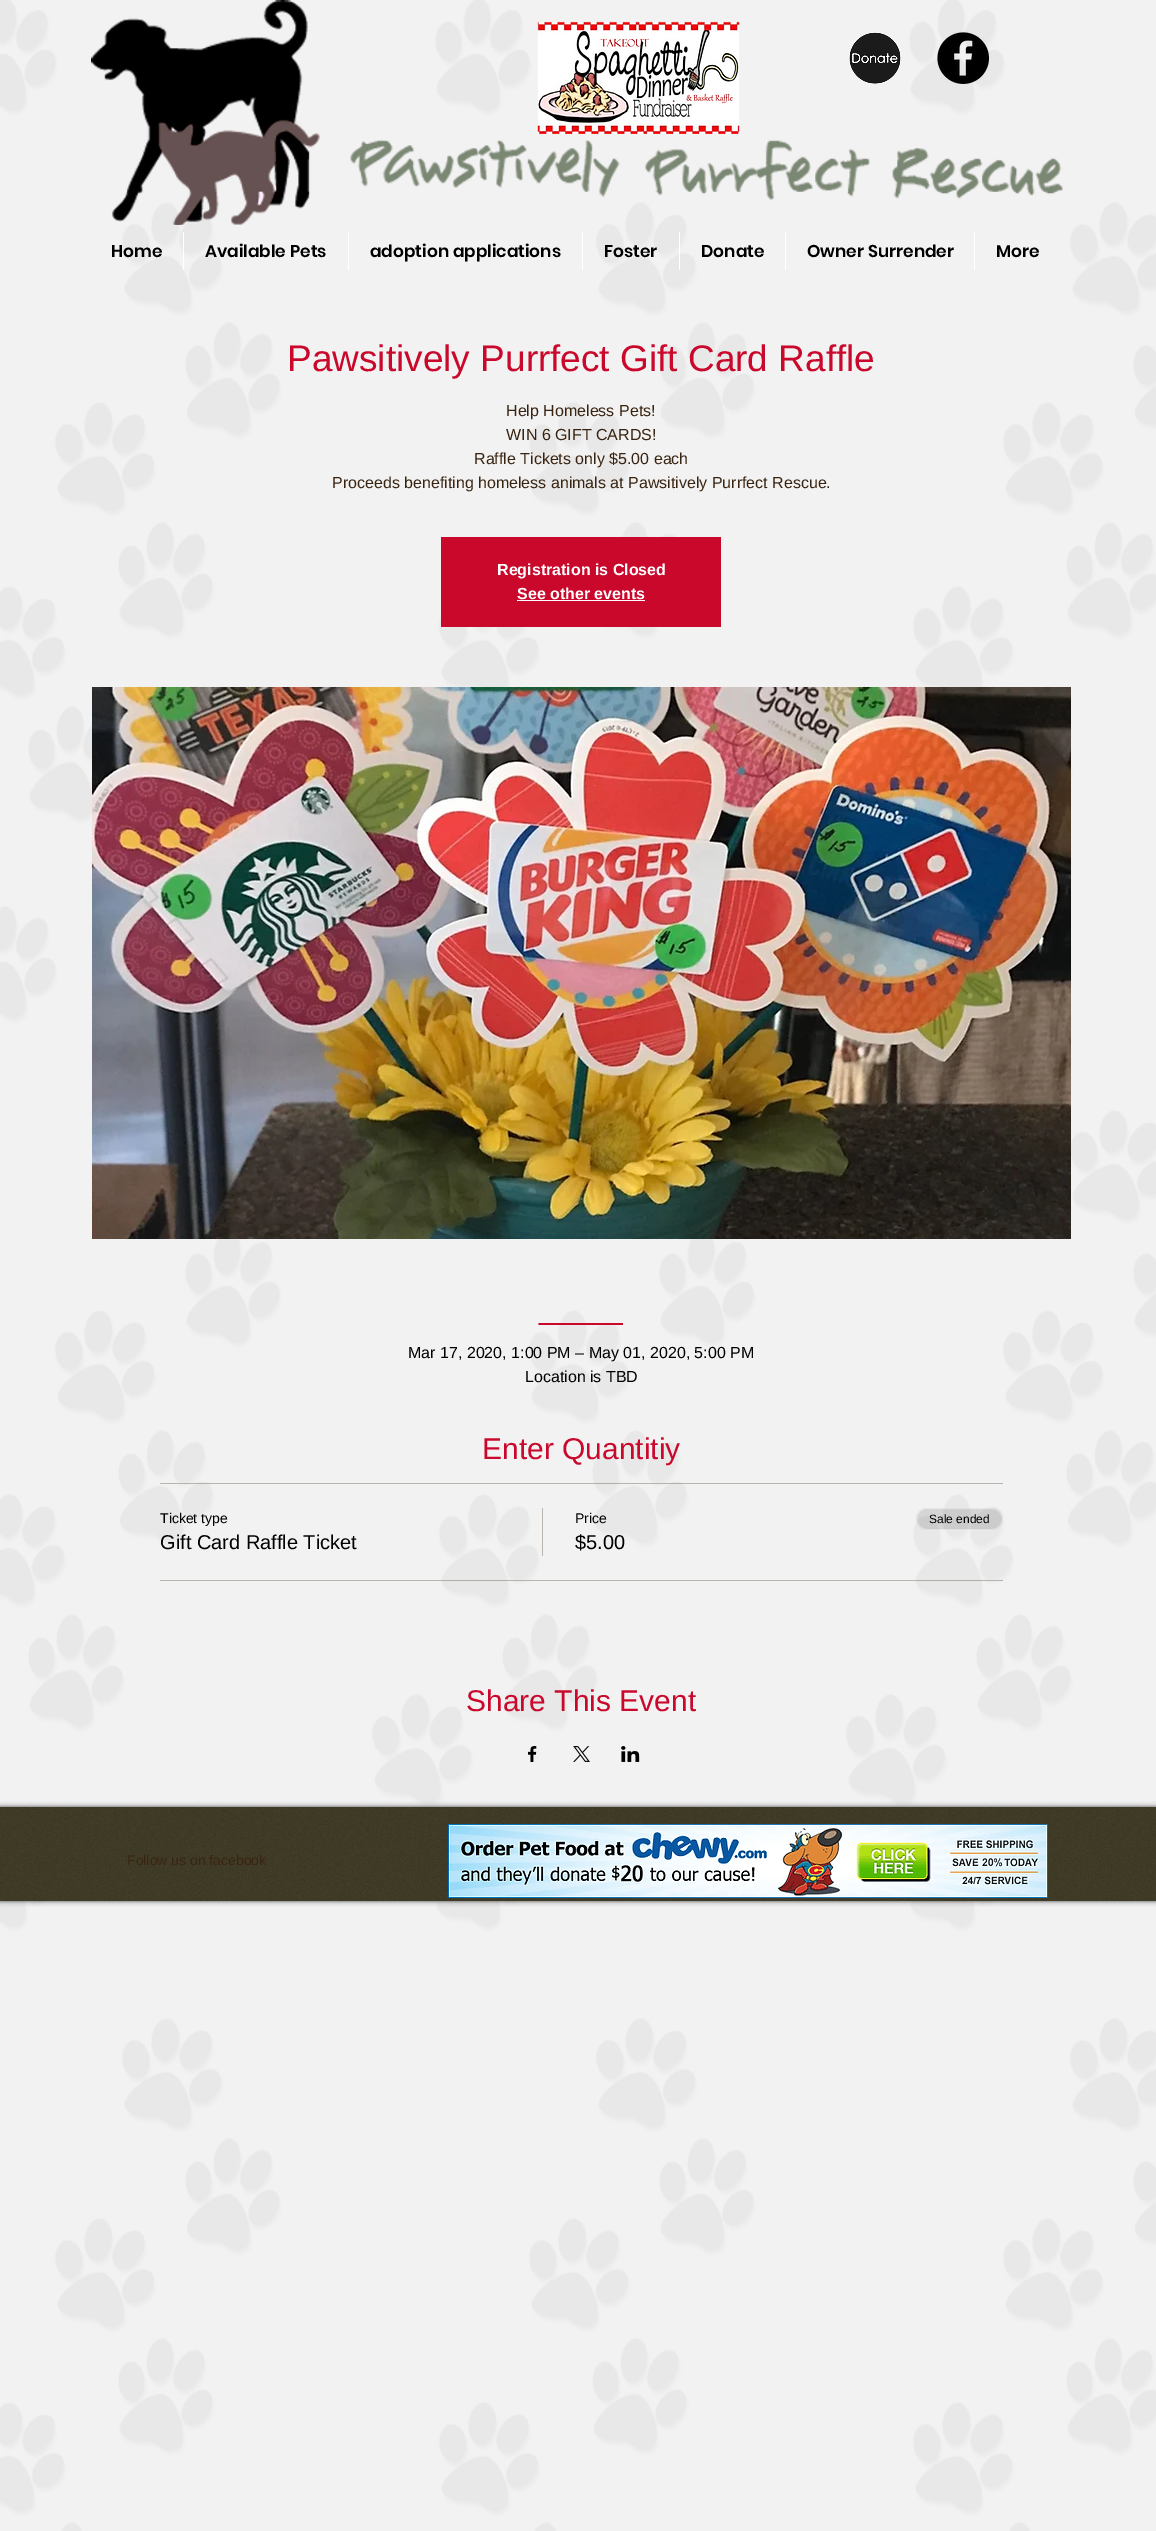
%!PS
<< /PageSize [1156 2531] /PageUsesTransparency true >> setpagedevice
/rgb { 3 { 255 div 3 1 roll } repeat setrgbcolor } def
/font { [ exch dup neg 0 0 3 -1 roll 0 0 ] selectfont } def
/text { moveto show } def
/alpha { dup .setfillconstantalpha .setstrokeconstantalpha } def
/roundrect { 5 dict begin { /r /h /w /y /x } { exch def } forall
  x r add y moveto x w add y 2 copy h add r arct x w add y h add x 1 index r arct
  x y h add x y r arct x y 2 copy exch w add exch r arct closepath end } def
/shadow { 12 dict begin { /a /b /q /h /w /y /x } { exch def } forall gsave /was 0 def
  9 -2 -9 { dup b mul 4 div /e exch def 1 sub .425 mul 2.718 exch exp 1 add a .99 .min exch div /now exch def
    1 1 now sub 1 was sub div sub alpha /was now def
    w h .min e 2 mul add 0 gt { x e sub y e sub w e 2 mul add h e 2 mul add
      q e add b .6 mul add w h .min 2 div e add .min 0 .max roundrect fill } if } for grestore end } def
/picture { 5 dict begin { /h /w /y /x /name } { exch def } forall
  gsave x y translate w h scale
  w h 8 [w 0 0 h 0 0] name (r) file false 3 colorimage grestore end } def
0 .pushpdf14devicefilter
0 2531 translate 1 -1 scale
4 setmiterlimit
241 241 241 rgb
0 0 1156 2531 rectfill
(img_01.rgb) 0 0 1156 2531 picture
(img_02.rgb) 91 0 972 225 picture
(img_03.rgb) 849 32 52 52 picture
(img_04.rgb) 937 32 52 52 picture
255 255 255 rgb
183 232 1 38 rectfill
348 232 1 38 rectfill
582 232 1 38 rectfill
679 232 1 38 rectfill
785 232 1 38 rectfill
974 232 1 38 rectfill
(img_05.rgb) 537 21 203 113 picture
201 8 44 rgb
441 537 280 90 rectfill
255 255 255 rgb
517 600 128 1 rectfill
(img_06.rgb) 92 687 979 552 picture
0.3 alpha
57 36 17 rgb
160 1483 843 1 rectfill
160 1580 843 1 rectfill
1 alpha
186 180 174 rgb
542 1508 1 48 rectfill
0.12 alpha
0 0 0 rgb
916 1508 87 22 11 roundrect fill
0.4 alpha
255 255 255 rgb
916.5 1508.5 86 21 10.5 roundrect stroke
1 alpha
(img_07.rgb) 528 1746 9 16 picture
(img_08.rgb) 573 1746 17 16 picture
(img_09.rgb) 621 1746 19 16 picture
0 0 0 rgb
0 1807 1156 94 0 2.5 0.7 shadow
62 58 37 rgb
0 1807 1156 94 rectfill
(img_10.rgb) 0 1807 1156 94 picture
(img_11.rgb) 448 1824 600 74 picture
/Poppins-SemiBold 17 font
0 0 0 rgb
(Home) 111 257 text
(Available Pets) 205 257 text
(adoption applications) 370 257 text
(Foster) 604 257 text
(Donate) 701 257 text
(Owner Surrender) 807 257 text
(More) 996 257 text
/LiberationSans-Regular 37 font
201 8 44 rgb
(Pawsitively Purrfect Gift Card Raffle) 287 371 text
/LiberationSans-Regular 16 font
57 36 17 rgb
(Help Homeless Pets!) 506 416 text
(WIN 6 GIFT CARDS!) 506 440 text
(Raffle Tickets only $5.00 each) 474 464 text
(Proceeds benefiting homeless animals at Pawsitively Purrfect Rescue.) 332 488 text
/LiberationSans-Bold 16 font
255 255 255 rgb
(Registration is Closed) 497 575 text
(See other events) 517 599 text
/LiberationSans-Regular 30 font
201 8 44 rgb
(_____) 539 1319 text
/LiberationSans-Regular 16 font
0 0 0 rgb
(Mar 17, 2020, 1:00 PM – May 01, 2020, 5:00 PM) 408 1358 text
(Location is TBD) 525 1382 text
/LiberationSans-Regular 30 font
201 8 44 rgb
(Enter Quantitiy) 482 1459 text
/LiberationSans-Regular 14 font
0 0 0 rgb
(Ticket type) 160 1523 text
/LiberationSans-Regular 20 font
(Gift Card Raffle Ticket) 160 1549 text
/LiberationSans-Regular 14 font
(Price) 575 1523 text
/LiberationSans-Regular 20 font
($5.00) 575 1549 text
/LiberationSans-Regular 12 font
(Sale ended) 929 1523 text
/LiberationSans-Regular 30 font
201 8 44 rgb
(Share This Event) 466 1711 text
/LiberationSans-Regular 14 font
57 36 17 rgb
(Follow us on facebook) 127 1865 text
.poppdf14devicefilter showpage
